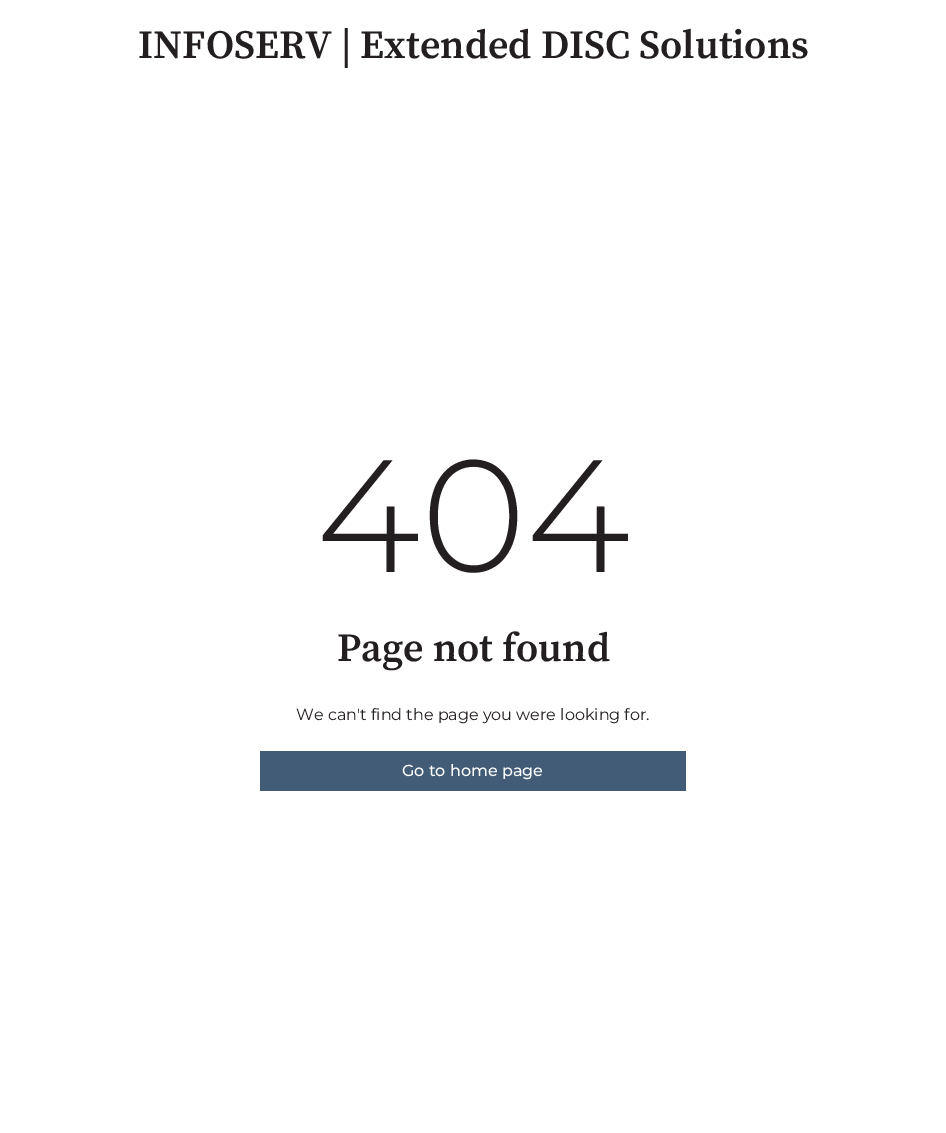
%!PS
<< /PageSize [946 1133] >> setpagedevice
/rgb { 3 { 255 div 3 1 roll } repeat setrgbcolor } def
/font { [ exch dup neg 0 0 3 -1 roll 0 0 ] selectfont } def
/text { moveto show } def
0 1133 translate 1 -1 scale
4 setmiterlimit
255 255 255 rgb
0 0 946 1133 rectfill
66 91 118 rgb
260 751 426 40 rectfill
/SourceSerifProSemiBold-SemiBold 40 font
35 31 32 rgb
(INFOSERV | Extended DISC Solutions) 138 58 text
/Montserrat-Light 160 font
(404) 316 572 text
/SourceSerifProSemiBold-SemiBold 40 font
(Page not found) 337 661 text
/Montserrat-Regular 16 font
(We can't find the page you were looking for.) 296 720 text
/Montserrat-Medium 16 font
255 255 255 rgb
(Go to home page) 402 776 text
showpage
